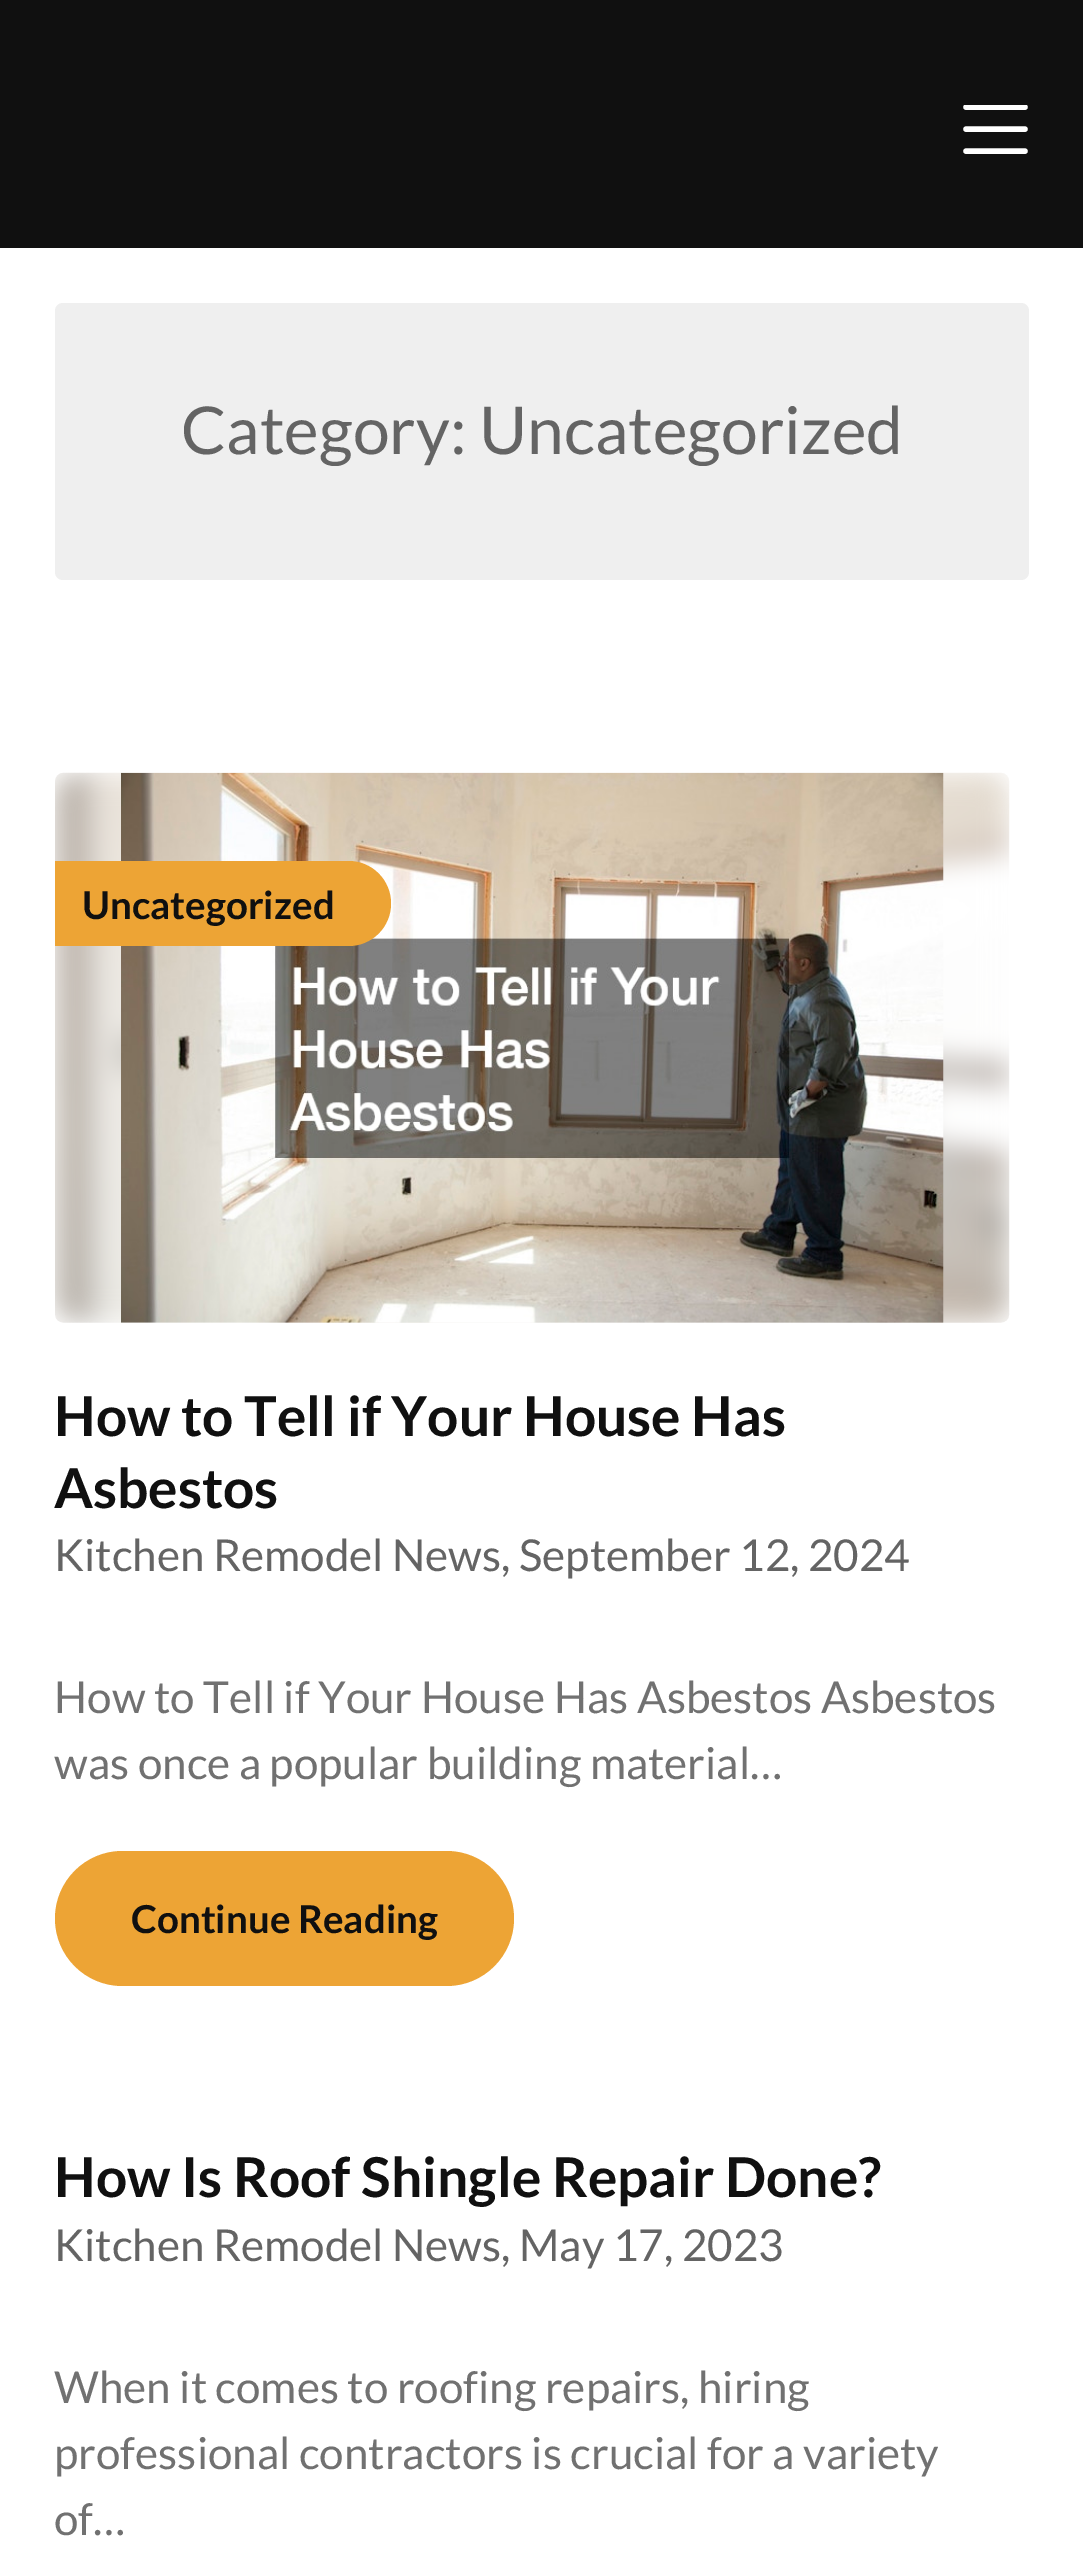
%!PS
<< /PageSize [1083 2574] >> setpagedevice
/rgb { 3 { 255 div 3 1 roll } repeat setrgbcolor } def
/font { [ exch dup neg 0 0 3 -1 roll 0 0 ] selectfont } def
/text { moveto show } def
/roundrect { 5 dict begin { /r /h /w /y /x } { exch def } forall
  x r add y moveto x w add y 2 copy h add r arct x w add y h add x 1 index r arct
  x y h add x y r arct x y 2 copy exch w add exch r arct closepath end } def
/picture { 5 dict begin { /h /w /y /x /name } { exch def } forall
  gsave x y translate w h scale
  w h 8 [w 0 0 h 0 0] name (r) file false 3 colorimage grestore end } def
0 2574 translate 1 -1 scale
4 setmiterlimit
255 255 255 rgb
0 0 1083 2574 rectfill
16 16 16 rgb
0 0 1083 248 rectfill
gsave
963 105 66 49 rectclip
255 255 255 rgb
5.5 setlinewidth
1 setlinecap
1 setlinejoin
966 107 moveto 59 0 rlineto stroke
grestore
255 255 255 rgb
5.5 setlinewidth
1 setlinecap
1 setlinejoin
966 129 moveto 59 0 rlineto stroke
966 151 moveto 59 0 rlineto stroke
239 239 239 rgb
55 303 974 277 8 roundrect fill
(img_01.rgb) 55 772 955 551 picture
(img_02.rgb) 121 772 823 551 picture
237 164 53 rgb
55 861 moveto 293.5 0 rlineto 23.5 0 42.5 19 42.5 42.5 rcurveto 0 23.5 -19 42.5 -42.5 42.5 rcurveto -293.5 0 rlineto closepath fill
55 1851 459 135 67.5 roundrect fill
/Lato-Regular 66 font
100 100 100 rgb
(Category: Uncategorized) 181 454 text
/Lato-Bold 38.5 font
16 16 16 rgb
(Uncategorized) 82 919 text
/Lato-Bold 55 font
(How to Tell if Your House Has) 54 1436 text
(Asbestos) 54 1508 text
/Lato-Regular 44 font
100 100 100 rgb
(Kitchen Remodel News, September 12, 2024) 54 1571 text
113 113 113 rgb
(How to Tell if Your House Has Asbestos Asbestos) 54 1713 text
(was once a popular building material…) 54 1779 text
/Lato-Bold 38.5 font
16 16 16 rgb
(Continue Reading) 131 1933 text
/Lato-Bold 55 font
(How Is Roof Shingle Repair Done?) 54 2197 text
/Lato-Regular 44 font
100 100 100 rgb
(Kitchen Remodel News, May 17, 2023) 54 2261 text
113 113 113 rgb
(When it comes to roofing repairs, hiring) 54 2403 text
(professional contractors is crucial for a variety) 54 2469 text
(of…) 54 2535 text
showpage
